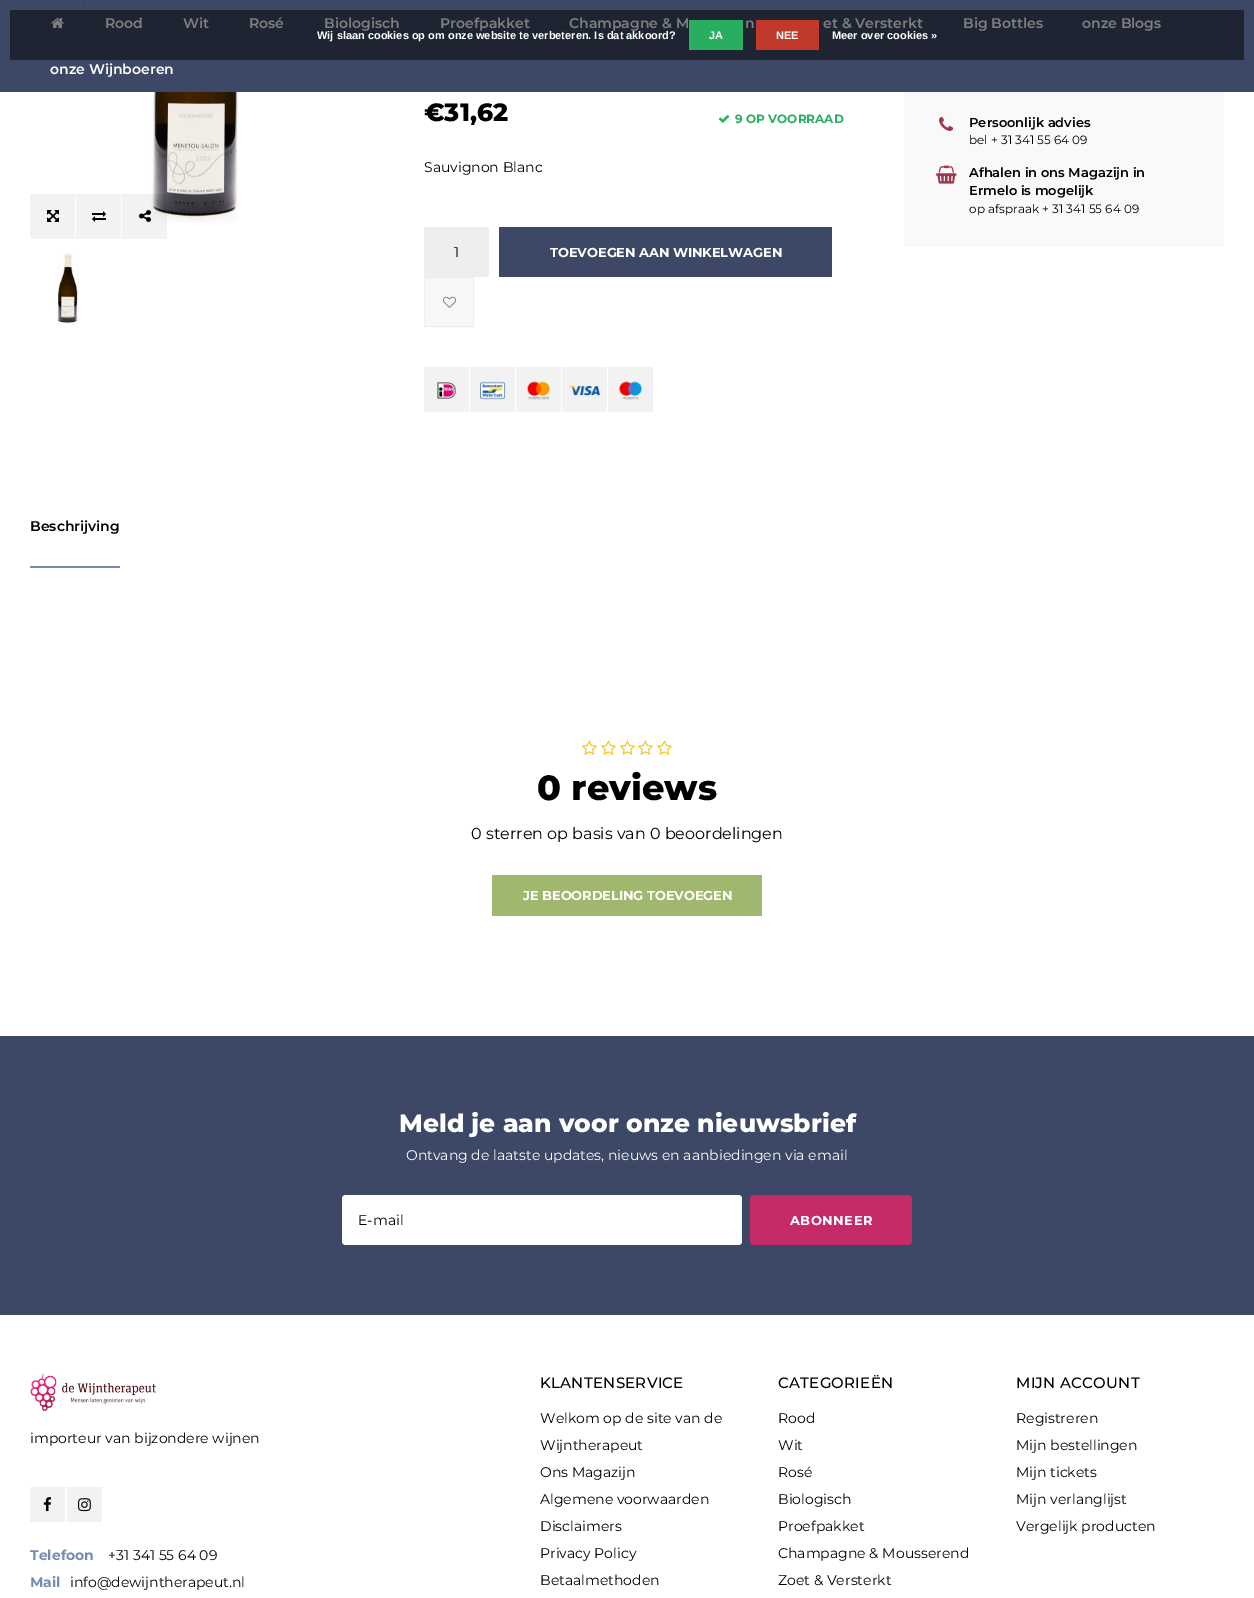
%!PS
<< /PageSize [1254 1598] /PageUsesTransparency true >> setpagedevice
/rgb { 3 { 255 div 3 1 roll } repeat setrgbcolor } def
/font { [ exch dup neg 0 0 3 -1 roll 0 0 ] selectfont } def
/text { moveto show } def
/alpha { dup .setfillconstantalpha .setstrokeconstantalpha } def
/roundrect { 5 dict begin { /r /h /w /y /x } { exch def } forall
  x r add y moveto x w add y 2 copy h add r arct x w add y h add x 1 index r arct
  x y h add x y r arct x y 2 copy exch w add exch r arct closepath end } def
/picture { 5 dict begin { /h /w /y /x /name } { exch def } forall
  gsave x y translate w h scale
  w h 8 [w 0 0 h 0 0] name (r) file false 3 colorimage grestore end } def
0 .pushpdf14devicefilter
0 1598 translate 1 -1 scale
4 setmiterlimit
255 255 255 rgb
0 0 1254 1598 rectfill
60 72 101 rgb
0 0 1254 92 rectfill
57 68 96 rgb
84 0 1 46 rectfill
30 0 1 46 rectfill
(img_01.rgb) 51 18 13 10 picture
242 242 242 rgb
30 194 moveto 45 0 rlineto 0 45 rlineto -41 0 rlineto -2 0 -4 -2 -4 -4 rcurveto closepath fill
(img_02.rgb) 47 210 12 12 picture
76 194 45 45 rectfill
(img_03.rgb) 92 211 14 11 picture
(img_05.rgb) 151 92 88 131 picture
0.05 alpha
0 0 0 rgb
122 194 45 45 rectfill
1 alpha
(img_04.rgb) 139 210 12 12 picture
(img_06.rgb) 57 253 22 71 picture
(img_07.rgb) 718 115 12 8 picture
238 238 238 rgb
424 227 65 50 rectfill
60 72 101 rgb
499 227 333 50 rectfill
247 247 247 rgb
424.5 277.5 moveto 49 0 rlineto 0 49 rlineto -49 0 rlineto closepath gsave fill grestore
238 238 238 rgb
stroke
(img_08.rgb) 443 296 13 12 picture
242 242 242 rgb
424 367 45 45 rectfill
(img_09.rgb) 437 382 19 17 picture
470 367 45 45 rectfill
(img_10.rgb) 480 381 26 19 picture
516 367 45 45 rectfill
(img_11.rgb) 527 381 24 19 picture
562 367 45 45 rectfill
(img_12.rgb) 569 386 31 10 picture
608 367 45 45 rectfill
(img_13.rgb) 618 381 25 19 picture
249 249 249 rgb
904 92 320 155 rectfill
(img_14.rgb) 939 116 15 15 picture
(img_15.rgb) 936 165 21 19 picture
116 139 181 rgb
30 566 90 2 rectfill
(img_16.rgb) 582 740 15 15 picture
(img_16.rgb) 601 740 15 15 picture
(img_16.rgb) 620 740 15 15 picture
(img_16.rgb) 638 740 15 15 picture
(img_16.rgb) 657 740 15 15 picture
160 183 111 rgb
492 875 270 41 rectfill
60 72 101 rgb
0 1036 1254 279 rectfill
255 255 255 rgb
342 1195 400 50 4 roundrect fill
346 1195 moveto 392 0 rlineto 2 0 4 2 4 4 rcurveto 0 42 rlineto 0 2 -2 4 -4 4 rcurveto -392 0 rlineto -2 0 -4 -2 -4 -4 rcurveto 0 -42 rlineto 0 -2 2 -4 4 -4 rcurveto closepath 346 1196 moveto 392 0 rlineto 2 0 4 1 4 3 rcurveto 0 42 rlineto 0 2 -2 3 -4 3 rcurveto -392 0 rlineto -2 0 -3 -1 -3 -3 rcurveto 0 -42 rlineto 0 -2 1 -3 3 -3 rcurveto closepath eofill
197 43 105 rgb
750 1195 162 50 4 roundrect fill
(img_17.rgb) 30 1373 126 39 picture
242 242 242 rgb
30 1487 35 35 rectfill
(img_18.rgb) 43 1497 9 15 picture
67 1487 35 35 rectfill
(img_19.rgb) 78 1498 13 14 picture
/Montserrat-SemiBold 14 font
255 255 255 rgb
(Rood) 105 28 text
(Wit) 183 28 text
(Rosé) 249 28 text
(Biologisch) 324 28 text
(Proefpakket) 440 28 text
(Champagne & M) 569 28 text
(n) 745 28 text
(et & Versterkt) 823 28 text
(Big Bottles) 963 28 text
(onze Blogs) 1082 28 text
(onze Wijnboeren) 50 74 text
0.5 alpha
0 0 0 rgb
10 10 1234 50 rectfill
/LiberationSans-Bold 11 font
1 alpha
255 255 255 rgb
(Wij slaan cookies op om onze website te verbeteren. Is dat akkoord?) 317 39 text
39 174 96 rgb
689 20 54 30 rectfill
255 255 255 rgb
(JA) 709 39 text
192 57 43 rgb
756 20 63 30 rectfill
255 255 255 rgb
(NEE) 776 39 text
(Meer over cookies ») 832 39 text
/Montserrat-ExtraBold 25 font
0 0 0 rgb
(€31,62) 424 121 text
/Montserrat-Bold 12 font
39 174 96 rgb
(9 OP VOORRAAD) 735 123 text
/Montserrat-Regular 14 font
0 0 0 rgb
(Sauvignon Blanc) 424 172 text
(1) 454 257 text
/Montserrat-Bold 13 font
255 255 255 rgb
550 257 moveto -0.1 0 (TOEVOEGEN AAN WINKELWAGEN) ashow
/Montserrat-SemiBold 13 font
0 0 0 rgb
(Persoonlijk advies) 969 127 text
/Montserrat-Regular 12 font
(bel + 31 341 55 64 09) 969 144 text
/Montserrat-SemiBold 13 font
(Afhalen in ons Magazijn in) 969 177 text
(Ermelo is mogelijk) 969 195 text
/Montserrat-Regular 12 font
(op afspraak + 31 341 55 64 09) 969 213 text
/Montserrat-SemiBold 14 font
(Beschrijving) 30 531 text
/Montserrat-ExtraBold 35 font
(0 reviews) 537 800 text
/Montserrat-Regular 16 font
(0 sterren op basis van 0 beoordelingen) 471 839 text
/Montserrat-Bold 13 font
255 255 255 rgb
523 900 moveto -0.1 0 (JE BEOORDELING TOEVOEGEN) ashow
/Montserrat-ExtraBold 25 font
(Meld je aan voor onze nieuwsbrief) 399 1132 text
/Montserrat-Regular 14 font
(Ontvang de laatste updates, nieuws en aanbiedingen via email) 406 1160 text
0 0 0 rgb
(E-mail) 358 1225 text
/Montserrat-Bold 13 font
255 255 255 rgb
790 1225 moveto 0.5 0 (ABONNEER) ashow
/Montserrat-Regular 14 font
0 0 0 rgb
(importeur van bijzondere wijnen) 30 1443 text
/Montserrat-Bold 14 font
116 139 181 rgb
(Telefoon) 30 1560 text
/Montserrat-Regular 14 font
0 0 0 rgb
(+31 341 55 64 09) 108 1560 text
/Montserrat-Bold 14 font
116 139 181 rgb
(Mail) 30 1587 text
/Montserrat-Regular 14 font
0 0 0 rgb
(info@dewijntherapeut.nl) 70 1587 text
/Montserrat-Medium 15 font
540 1388 moveto 0.25 0 (KLANTENSERVICE) ashow
/Montserrat-Regular 14 font
(Welkom op de site van de) 540 1423 text
(Wijntherapeut) 540 1450 text
(Ons Magazijn) 540 1477 text
(Algemene voorwaarden) 540 1504 text
(Disclaimers) 540 1531 text
(Privacy Policy) 540 1558 text
(Betaalmethoden) 540 1585 text
/Montserrat-Medium 15 font
778 1388 moveto 0.25 0 (CATEGORIEËN) ashow
/Montserrat-Regular 14 font
(Rood) 778 1423 text
(Wit) 778 1450 text
(Rosé) 778 1477 text
(Biologisch) 778 1504 text
(Proefpakket) 778 1531 text
(Champagne & Mousserend) 778 1558 text
(Zoet & Versterkt) 778 1585 text
/Montserrat-Medium 15 font
1016 1388 moveto 0.25 0 (MIJN ACCOUNT) ashow
/Montserrat-Regular 14 font
(Registreren) 1016 1423 text
(Mijn bestellingen) 1016 1450 text
(Mijn tickets) 1016 1477 text
(Mijn verlanglijst) 1016 1504 text
(Vergelijk producten) 1016 1531 text
.poppdf14devicefilter showpage
